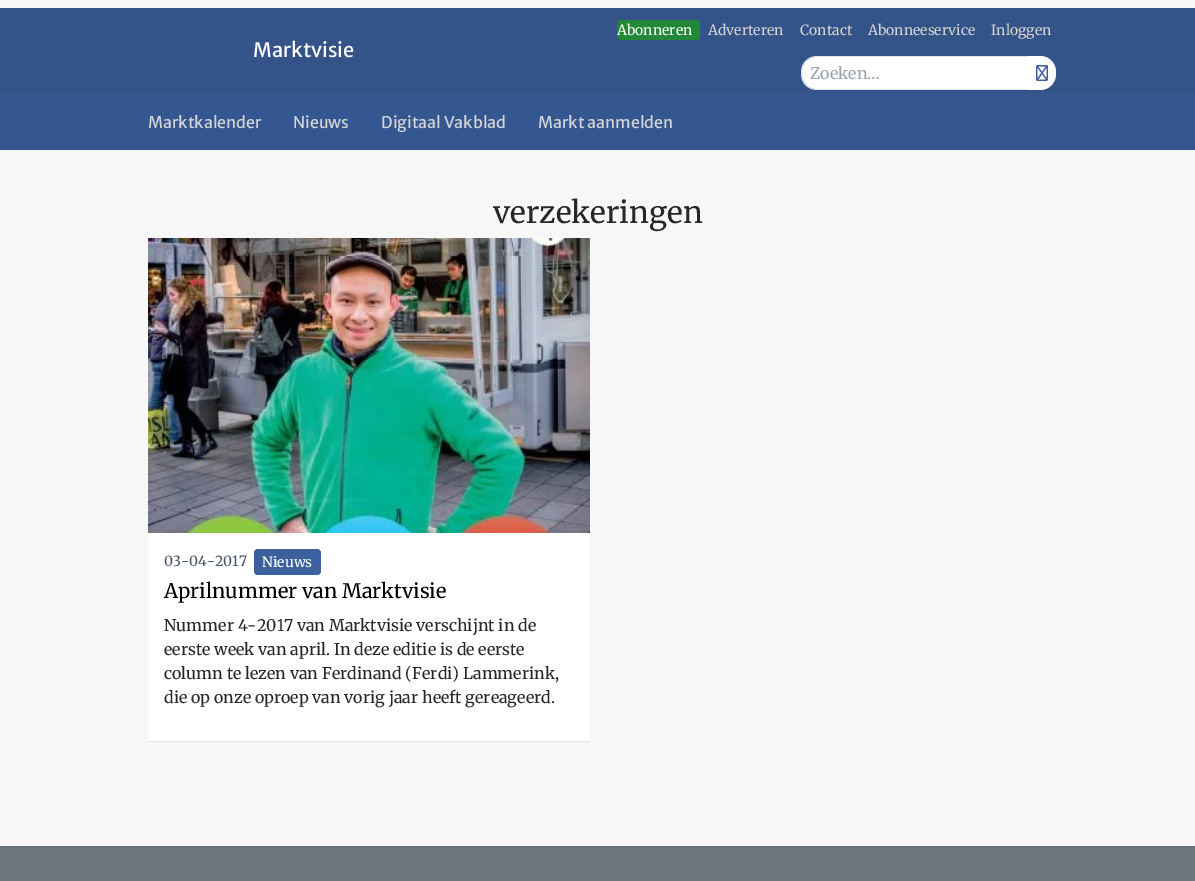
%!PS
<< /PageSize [1195 881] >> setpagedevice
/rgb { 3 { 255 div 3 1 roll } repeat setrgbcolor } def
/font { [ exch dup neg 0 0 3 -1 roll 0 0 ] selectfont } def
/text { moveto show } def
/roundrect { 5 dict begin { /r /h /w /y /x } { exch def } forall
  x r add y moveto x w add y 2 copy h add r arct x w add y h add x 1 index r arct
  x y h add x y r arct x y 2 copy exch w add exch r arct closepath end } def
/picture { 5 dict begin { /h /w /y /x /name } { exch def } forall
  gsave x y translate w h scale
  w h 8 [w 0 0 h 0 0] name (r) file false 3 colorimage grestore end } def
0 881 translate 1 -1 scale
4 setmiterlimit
247 247 247 rgb
0 0 1195 881 rectfill
52 83 136 rgb
0 8 1195 86 rectfill
34 135 54 rgb
617 20 83 20 4 roundrect fill
255 255 255 rgb
817 57 moveto 211 0 rlineto 0 32 rlineto -211 0 rlineto -8.5 0 -15 -6.5 -15 -15 rcurveto 0 -2 rlineto 0 -8.5 6.5 -15 15 -15 rcurveto closepath fill
222 226 230 rgb
817 56 moveto 211 0 rlineto 0 34 rlineto -211 0 rlineto -9 0 -16 -7 -16 -16 rcurveto 0 -2 rlineto 0 -9 7 -16 16 -16 rcurveto closepath 817 57 moveto 211 0 rlineto 0 32 rlineto -214 0 rlineto -4 -1 -7 -3 -9 -7 rcurveto -7 -10 -1 -25 12 -25 rcurveto closepath eofill
255 255 255 rgb
1028 56 moveto 12 0 rlineto 9 0 16 7 16 16 rcurveto 0 2 rlineto 0 9 -7 16 -16 16 rcurveto -12 0 rlineto closepath fill
(img_01.rgb) 1036 65 12 16 picture
52 87 146 rgb
0 94 1195 56 rectfill
255 255 255 rgb
148 533 442 208 rectfill
228 228 231 rgb
148 741 442 1 rectfill
(img_02.rgb) 148 238 442 295 picture
60 96 158 rgb
254 549 67 26 4 roundrect fill
108 117 125 rgb
0 846 1195 35 rectfill
/MerriweatherSans-Regular 20 font
255 255 255 rgb
(Marktvisie) 253 57 text
/Merriweather-Regular 14 font
(Abonneren) 617 35 text
212 212 212 rgb
(Adverteren) 708 35 text
(Contact) 800 35 text
(Abonneeservice) 868 35 text
(Inloggen) 991 35 text
/Merriweather-Regular 16 font
156 163 175 rgb
(Zoeken…) 810 79 text
/MerriweatherSans-Regular 16 font
212 212 212 rgb
(Marktkalender) 148 128 text
(Nieuws) 293 128 text
(Digitaal Vakblad) 381 128 text
(Markt aanmelden) 538 128 text
/Merriweather-Regular 30 font
39 39 42 rgb
(verzekeringen) 493 223 text
/Merriweather-Regular 14 font
71 85 105 rgb
(03-04-2017) 164 566 text
/Merriweather-Medium 14 font
255 255 255 rgb
(Nieuws) 262 567 text
/Merriweather-Regular 20 font
0 0 0 rgb
(Aprilnummer van Marktvisie) 164 598 text
/Merriweather-Regular 16 font
39 39 42 rgb
(Nummer 4-2017 van Marktvisie verschijnt in de) 164 631 text
(eerste week van april. In deze editie is de eerste) 164 655 text
(column te lezen van Ferdinand \(Ferdi\) Lammerink,) 164 679 text
(die op onze oproep van vorig jaar heeft gereageerd.) 164 703 text
showpage
